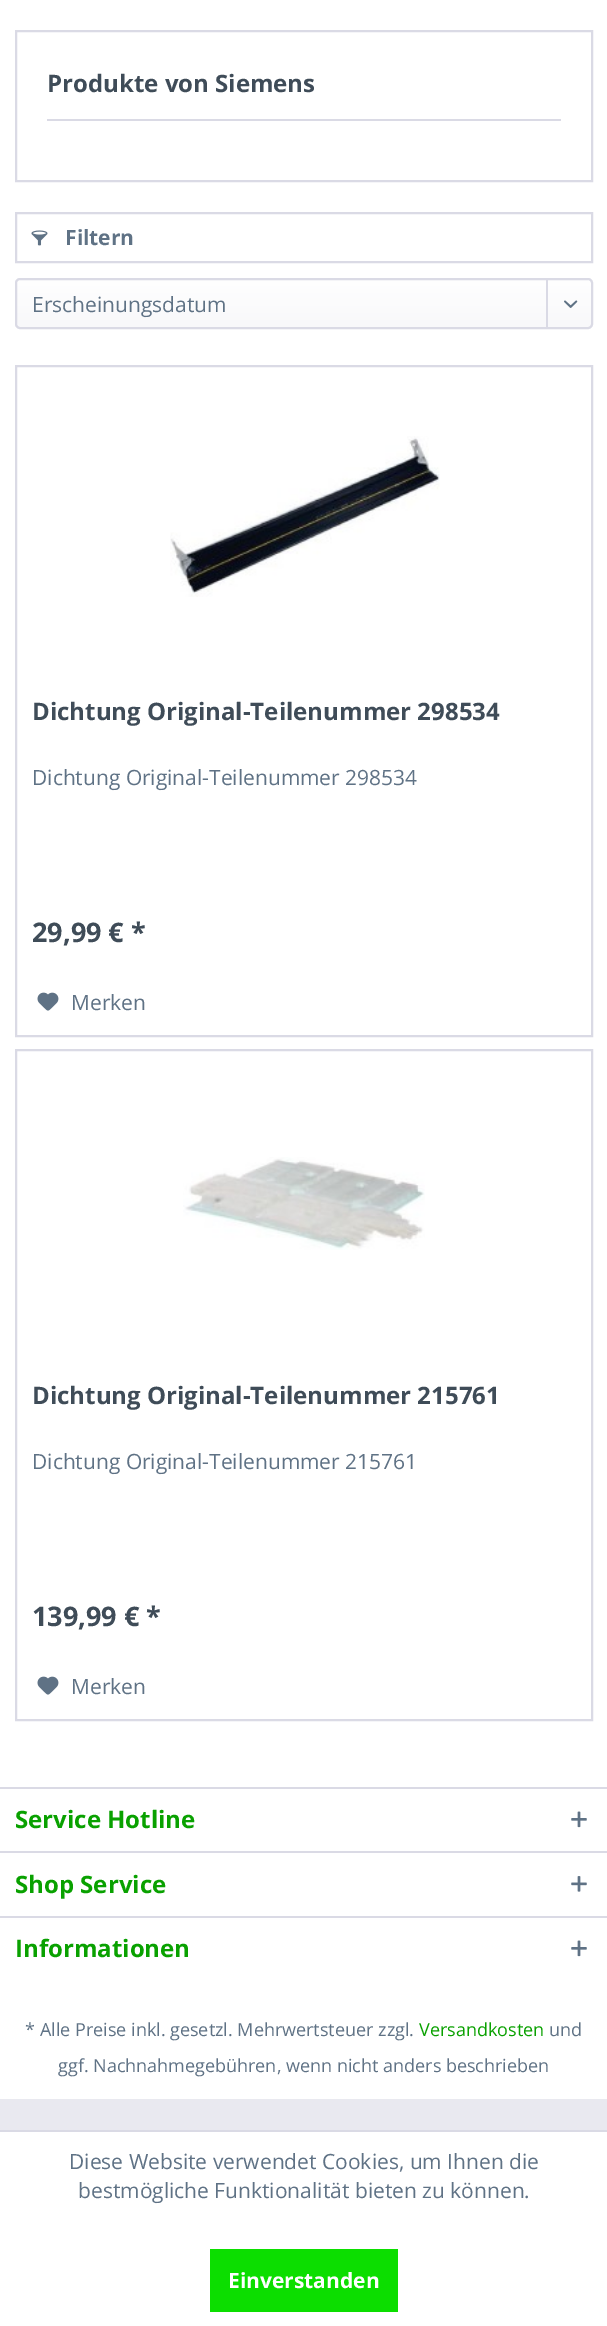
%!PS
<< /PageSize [607 2326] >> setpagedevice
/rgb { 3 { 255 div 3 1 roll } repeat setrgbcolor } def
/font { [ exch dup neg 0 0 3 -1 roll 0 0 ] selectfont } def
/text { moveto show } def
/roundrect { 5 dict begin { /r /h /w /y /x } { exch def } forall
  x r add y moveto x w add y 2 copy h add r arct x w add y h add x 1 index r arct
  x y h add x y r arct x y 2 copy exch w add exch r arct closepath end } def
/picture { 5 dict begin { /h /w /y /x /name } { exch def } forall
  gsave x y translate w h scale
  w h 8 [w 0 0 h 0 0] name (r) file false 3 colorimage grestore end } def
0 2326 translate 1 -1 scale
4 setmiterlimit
233 233 240 rgb
0 0 607 2326 rectfill
255 255 255 rgb
0 0 607 1787 rectfill
218 218 229 rgb
2 setlinewidth
16 31 576 150 rectstroke
47 119 514 2 rectfill
16 213 576 49 rectstroke
(img_01.rgb) 31 230 17 16 picture
gsave 17 279 574 48 3 roundrect clip newpath
<< /ShadingType 2 /ColorSpace /DeviceRGB /Coords [304 279 304 327] /Extend [true true] /Function << /FunctionType 2 /Domain [0 1] /C0 [1 1 1] /C1 [0.973 0.973 0.98] /N 1 >> >> shfill grestore
16 279 576 49 4 roundrect stroke
546 279 2 50 rectfill
(img_02.rgb) 564 300 14 8 picture
16 366 576 670 rectstroke
(img_03.rgb) 170 436 270 161 picture
(img_04.rgb) 37 992 22 19 picture
16 1050 576 670 rectstroke
(img_05.rgb) 183 1157 242 93 picture
(img_04.rgb) 37 1676 22 19 picture
255 255 255 rgb
0 1789 607 310 rectfill
218 218 229 rgb
0 1787 607 2 rectfill
(img_06.rgb) 571 1811 16 17 picture
0 1851 607 2 rectfill
(img_07.rgb) 571 1876 16 16 picture
0 1916 607 2 rectfill
(img_06.rgb) 571 1940 16 17 picture
255 255 255 rgb
0 2132 607 194 rectfill
218 218 229 rgb
0 2130 607 2 rectfill
12 222 0 rgb
210 2249 188 63 rectfill
/OpenSans-Bold 24 font
63 76 88 rgb
(Produkte von Siemens) 47 92 text
/OpenSans-Bold 21 font
95 114 133 rgb
(Filtern) 65 245 text
/OpenSans-Regular 21 font
(Erscheinungsdatum) 32 312 text
/OpenSans-Bold 24 font
63 76 88 rgb
(Dichtung Original-Teilenummer 298534) 32 720 text
/OpenSans-Regular 21 font
95 114 133 rgb
(Dichtung Original-Teilenummer 298534) 32 785 text
/OpenSans-Bold 27 font
63 76 88 rgb
(29,99 € *) 32 942 text
/OpenSans-Regular 21 font
95 114 133 rgb
(Merken) 71 1010 text
/OpenSans-Bold 24 font
63 76 88 rgb
(Dichtung Original-Teilenummer 215761) 32 1404 text
/OpenSans-Regular 21 font
95 114 133 rgb
(Dichtung Original-Teilenummer 215761) 32 1469 text
/OpenSans-Bold 27 font
63 76 88 rgb
(139,99 € *) 32 1626 text
/OpenSans-Regular 21 font
95 114 133 rgb
(Merken) 71 1694 text
/OpenSans-Bold 24 font
9 161 0 rgb
(Service Hotline) 15 1828 text
(Shop Service) 15 1893 text
(Informationen) 15 1957 text
/OpenSans-Regular 18 font
95 114 133 rgb
(* Alle Preise inkl. gesetzl. Mehrwertsteuer zzgl.) 25 2036 text
9 161 0 rgb
(Versandkosten) 419 2036 text
95 114 133 rgb
(und) 549 2036 text
(ggf. Nachnahmegebühren, wenn nicht anders beschrieben) 58 2072 text
/OpenSans-Regular 21 font
(Diese Website verwendet Cookies, um Ihnen die) 69 2169 text
(bestmögliche Funktionalität bieten zu können.) 78 2198 text
/OpenSans-Bold 21 font
255 255 255 rgb
(Einverstanden) 228 2288 text
showpage
